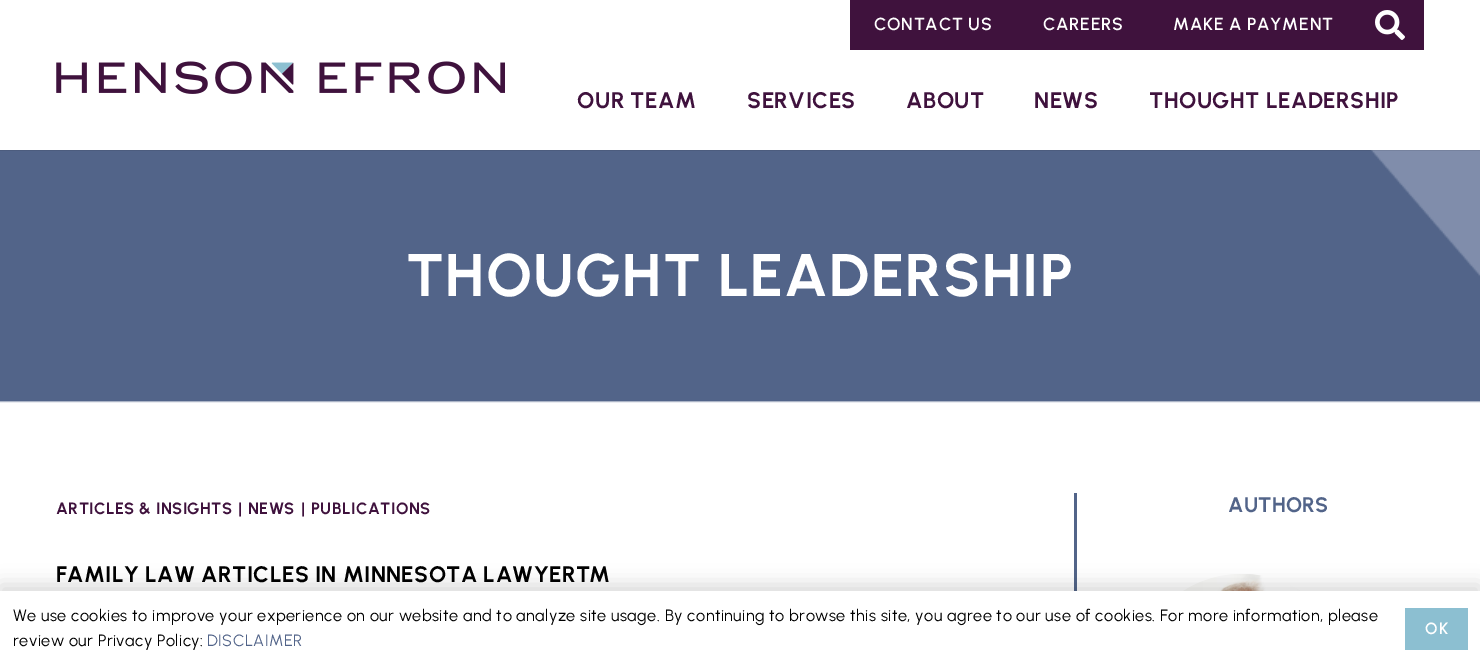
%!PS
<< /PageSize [1480 666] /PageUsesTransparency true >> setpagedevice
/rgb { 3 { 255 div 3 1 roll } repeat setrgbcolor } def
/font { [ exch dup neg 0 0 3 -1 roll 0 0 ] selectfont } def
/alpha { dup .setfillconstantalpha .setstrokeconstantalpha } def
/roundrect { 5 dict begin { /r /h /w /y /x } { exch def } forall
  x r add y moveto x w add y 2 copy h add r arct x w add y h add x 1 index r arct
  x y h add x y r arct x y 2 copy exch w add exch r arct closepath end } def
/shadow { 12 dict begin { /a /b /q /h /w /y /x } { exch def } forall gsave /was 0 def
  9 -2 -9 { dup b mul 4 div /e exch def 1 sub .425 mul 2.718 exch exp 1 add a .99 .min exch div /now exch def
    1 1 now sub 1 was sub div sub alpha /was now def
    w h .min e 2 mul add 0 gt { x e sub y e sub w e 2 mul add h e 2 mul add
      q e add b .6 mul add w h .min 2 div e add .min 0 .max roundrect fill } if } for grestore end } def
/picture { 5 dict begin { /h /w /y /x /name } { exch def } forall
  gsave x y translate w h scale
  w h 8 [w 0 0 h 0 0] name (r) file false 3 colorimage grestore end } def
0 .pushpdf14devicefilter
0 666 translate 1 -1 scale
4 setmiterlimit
255 255 255 rgb
0 0 1480 666 rectfill
63 18 61 rgb
850 0 574 50 rectfill
(img_01.rgb) 1375 10 30 30 picture
(img_03.rgb) 0 150 1480 253 picture
0.08 alpha
0 0 0 rgb
0 150 1480 1 rectfill
1 alpha
(img_02.rgb) 56 61 449 33 picture
82 100 137 rgb
1074 493 3 98 rectfill
(img_04.rgb) 1183 574 118 17 picture
0 0 0 rgb
0 585 1480 75 0 9.5 0.15 shadow
255 255 255 rgb
0 591 1480 75 rectfill
140 191 209 rgb
1405 608 63 42 rectfill
/Urbanist-SemiBold 17.5 font
255 255 255 rgb
874 30 moveto 0.75 0 (CONTACT US) ashow
1043 30 moveto 0.75 0 (CAREERS) ashow
1173 30 moveto 0.75 0 (MAKE A PAYMENT) ashow
/Urbanist-Bold 22.5 font
63 18 61 rgb
577 108 moveto 0.45 0 (OUR TEAM) ashow
747 108 moveto 0.45 0 (SERVICES) ashow
906 108 moveto 0.45 0 (ABOUT) ashow
1034 108 moveto 0.45 0 (NEWS) ashow
1149 108 moveto 0.45 0 (THOUGHT LEADERSHIP) ashow
/Urbanist-Bold 60 font
255 255 255 rgb
406 296 moveto 1.25 0 (THOUGHT LEADERSHIP) ashow
/Urbanist-Bold 16.25 font
63 18 61 rgb
56 514 moveto 0.45 0 (ARTICLES & INSIGHTS) ashow
238 514 moveto 0.45 0 (|) ashow
248 514 moveto 0.45 0 (NEWS) ashow
301 514 moveto 0.45 0 (|) ashow
311 514 moveto 0.45 0 (PUBLICATIONS) ashow
/Urbanist-Bold 22.4 font
0 0 0 rgb
56 582 moveto 0.45 0 (FAMILY LAW ARTICLES IN MINNESOTA LAWYER™) ashow
/Urbanist-Bold 21 font
82 100 137 rgb
1228 512 moveto 0.25 0 (AUTHORS) ashow
/Urbanist-Regular 16.25 font
0 0 0 rgb
13 621 moveto 0.45 0 (We use cookies to improve your experience on our website and to analyze site usage. By continuing to browse this site, you agree to our use of cookies. For more information, please) ashow
13 646 moveto 0.45 0 (review our Privacy Policy:) ashow
82 100 137 rgb
207 646 moveto 0.45 0 (DISCLAIMER) ashow
/Urbanist-SemiBold 16.25 font
255 255 255 rgb
1425 634 moveto 1 0 (OK) ashow
.poppdf14devicefilter showpage
